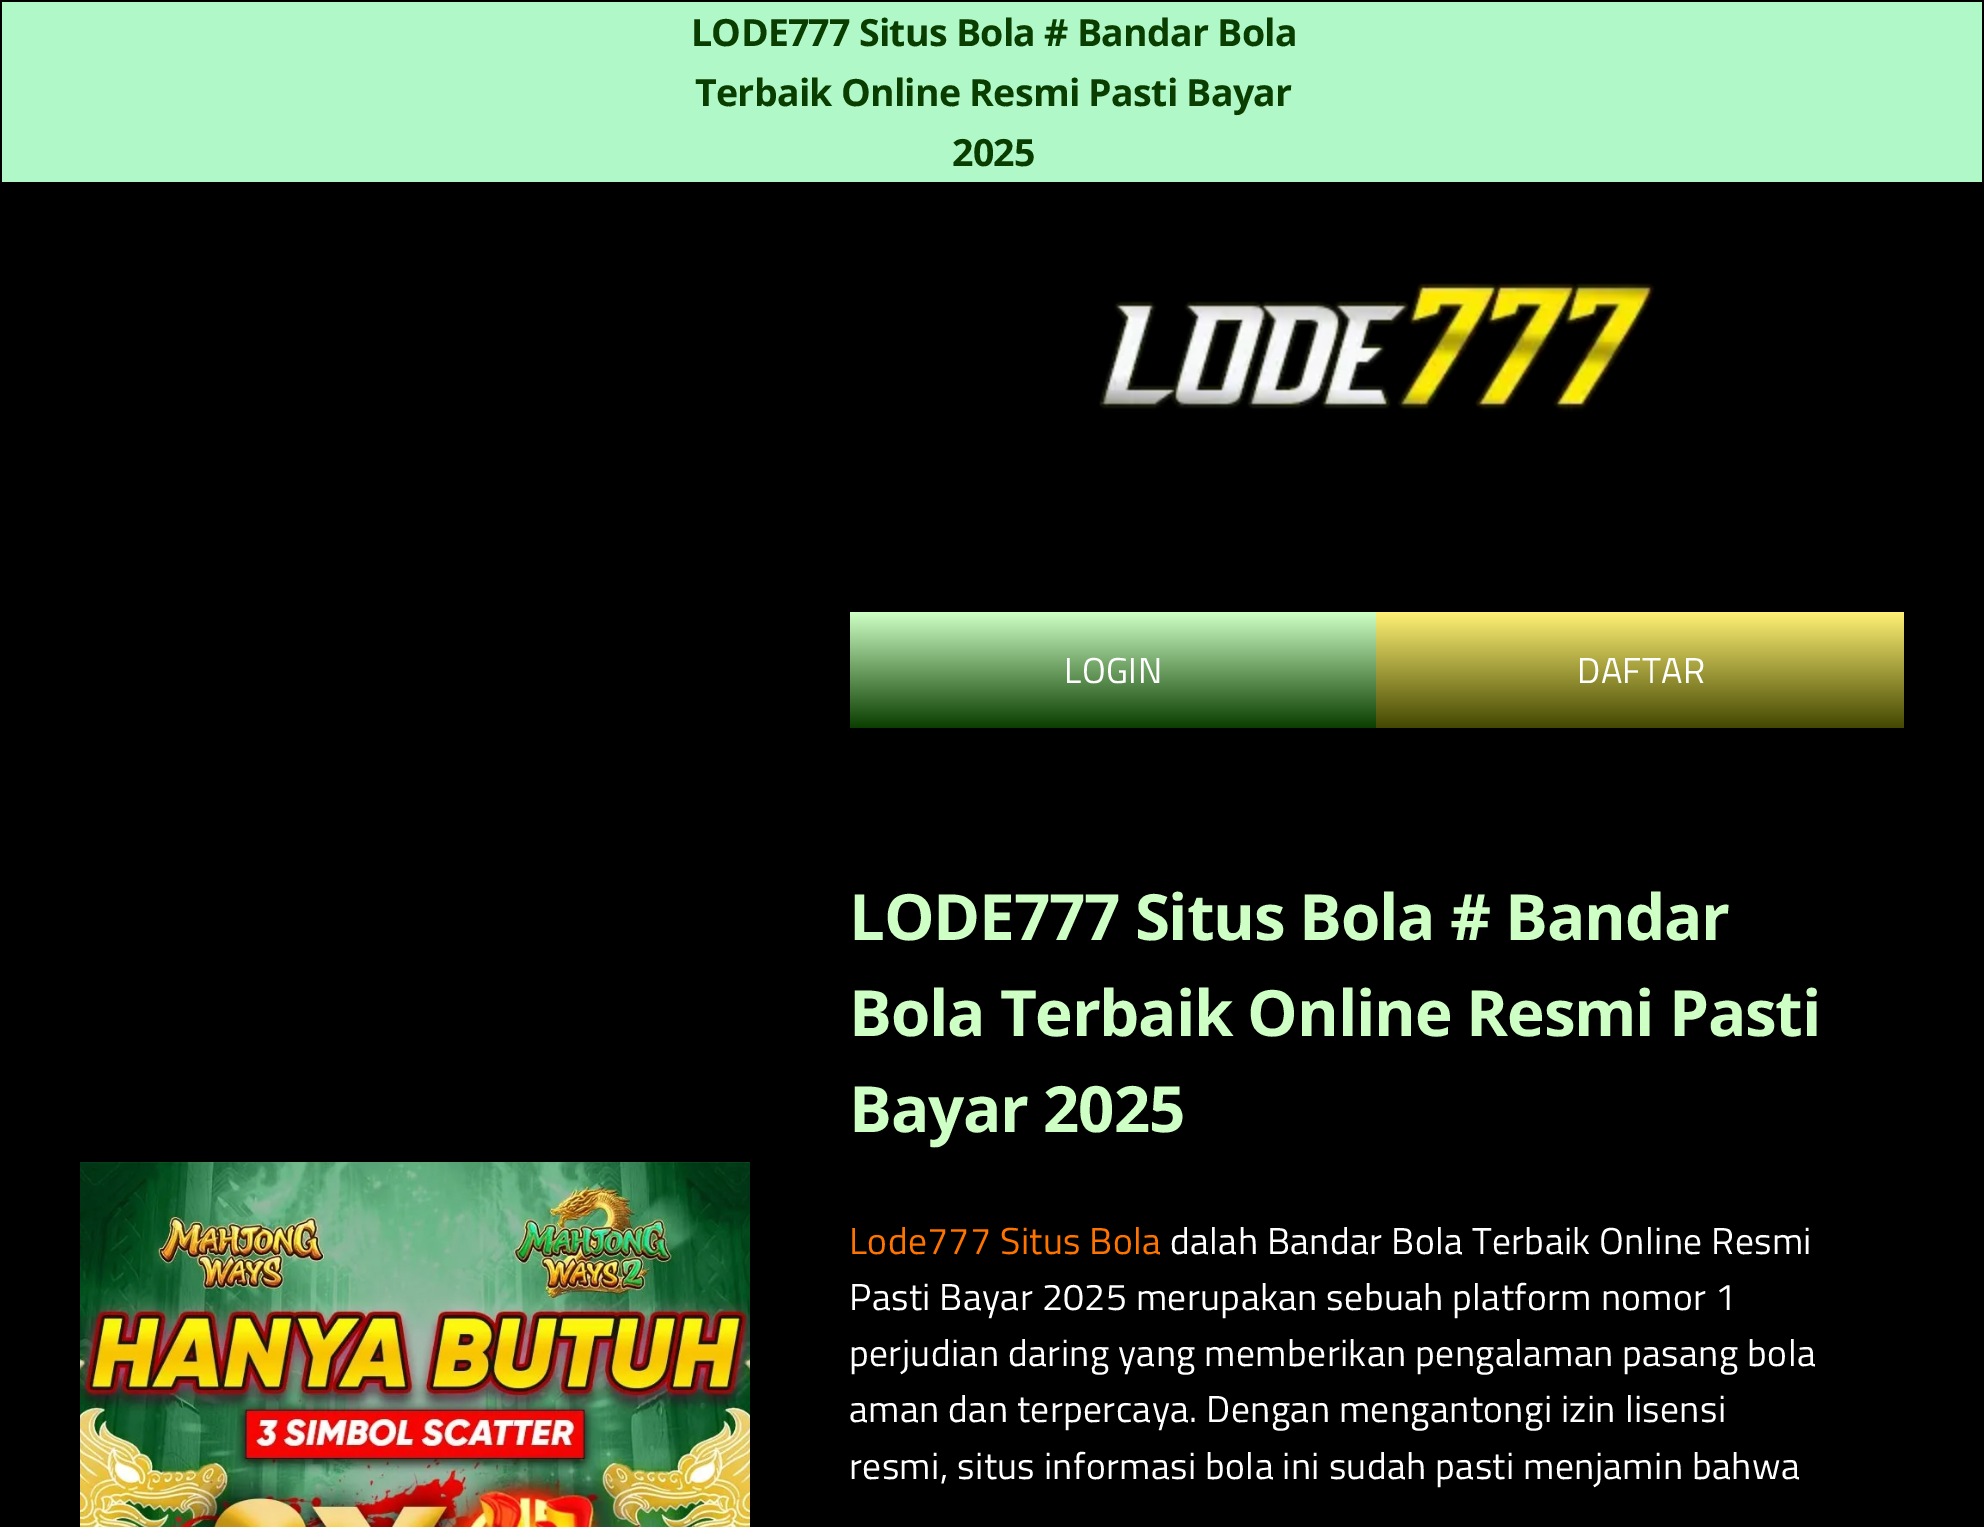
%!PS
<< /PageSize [1984 1527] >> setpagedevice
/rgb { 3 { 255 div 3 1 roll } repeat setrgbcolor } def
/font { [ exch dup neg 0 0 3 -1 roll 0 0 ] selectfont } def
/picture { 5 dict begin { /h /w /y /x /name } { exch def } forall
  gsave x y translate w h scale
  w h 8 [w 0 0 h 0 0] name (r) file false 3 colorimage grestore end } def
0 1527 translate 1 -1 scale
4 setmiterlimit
0 0 0 rgb
0 0 1984 1527 rectfill
176 248 200 rgb
2 2 1980 180 rectfill
(img_01.rgb) 1099 283 556 129 picture
gsave 850 612 moveto 526 0 rlineto 0 116 rlineto -526 0 rlineto closepath clip newpath
<< /ShadingType 2 /ColorSpace /DeviceRGB /Coords [1113 612 1113 728] /Extend [true true] /Function << /FunctionType 2 /Domain [0 1] /C0 [0.808 1 0.769] /C1 [0.039 0.239 0] /N 1 >> >> shfill grestore
gsave 1376 612 moveto 528 0 rlineto 0 116 rlineto -528 0 rlineto closepath clip newpath
<< /ShadingType 2 /ColorSpace /DeviceRGB /Coords [1640 612 1640 728] /Extend [true true] /Function << /FunctionType 2 /Domain [0 1] /C0 [1 0.945 0.459] /C1 [0.263 0.278 0.004] /N 1 >> >> shfill grestore
(img_02.rgb) 80 1162 670 365 picture
/OpenSans-Bold 37.5 font
10 61 0 rgb
691 46 moveto -0.75 0 (LODE777 Situs Bola # Bandar Bola) ashow
695 106 moveto -0.75 0 (Terbaik Online Resmi Pasti Bayar) ashow
952 166 moveto -0.75 0 (2025) ashow
/TitilliumWeb-Regular 36 font
255 255 255 rgb
1064 683 moveto 0.38 0 (LOGIN) ashow
1577 683 moveto 0.38 0 (DAFTAR) ashow
/OpenSans-Bold 63.75 font
206 255 196 rgb
849 940 moveto -1.25 0 (LODE777 Situs Bola # Bandar) ashow
849 1036 moveto -1.25 0 (Bola Terbaik Online Resmi Pasti) ashow
849 1132 moveto -1.25 0 (Bayar 2025) ashow
/TitilliumWeb-Regular 37.5 font
255 115 0 rgb
849 1254 moveto 0.38 0 (Lode777 Situs Bola) ashow
255 255 255 rgb
1170 1254 moveto 0.38 0 (dalah Bandar Bola Terbaik Online Resmi) ashow
849 1310 moveto 0.38 0 (Pasti Bayar 2025 merupakan sebuah platform nomor 1) ashow
849 1366 moveto 0.38 0 (perjudian daring yang memberikan pengalaman pasang bola) ashow
849 1422 moveto 0.38 0 (aman dan terpercaya. Dengan mengantongi izin lisensi) ashow
849 1479 moveto 0.38 0 (resmi, situs informasi bola ini sudah pasti menjamin bahwa) ashow
showpage
